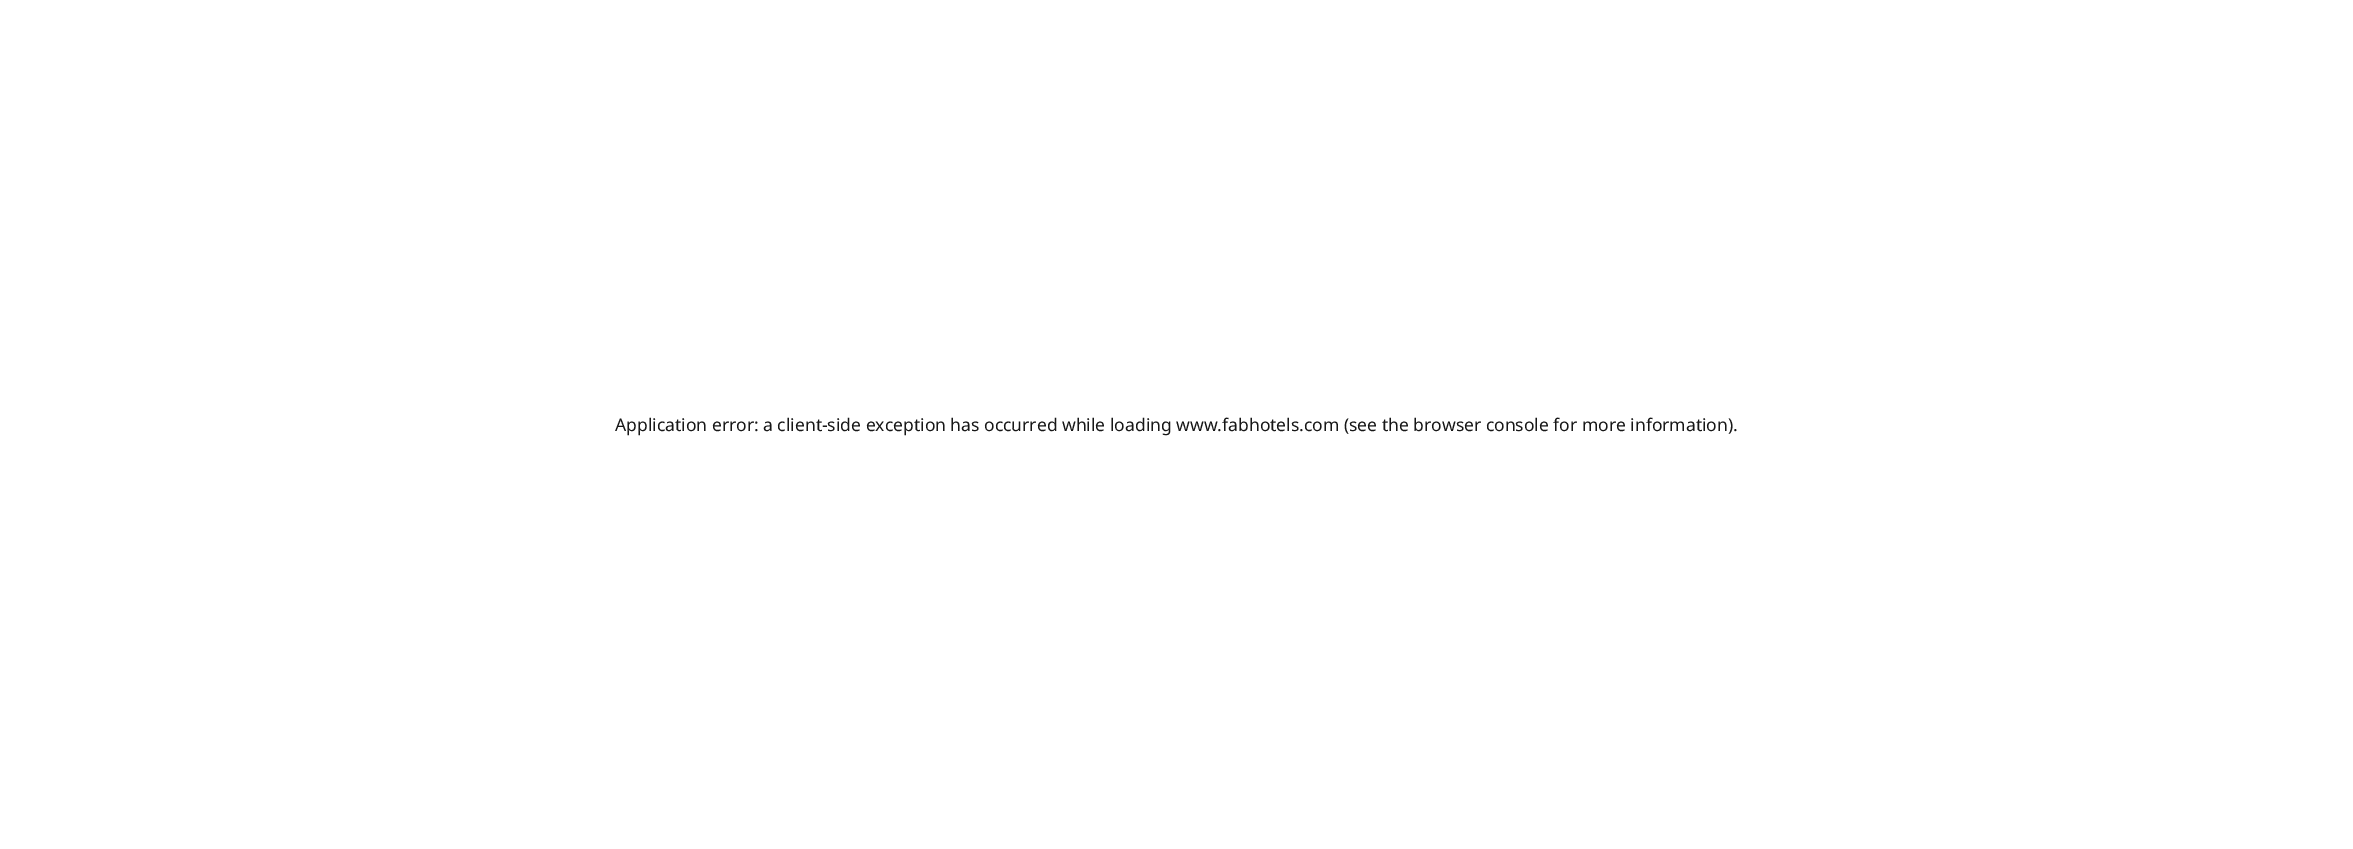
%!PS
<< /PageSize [2353 849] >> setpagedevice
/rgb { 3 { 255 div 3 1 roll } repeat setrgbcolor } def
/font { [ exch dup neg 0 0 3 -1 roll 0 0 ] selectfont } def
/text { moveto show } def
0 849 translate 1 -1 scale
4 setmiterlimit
255 255 255 rgb
0 0 2353 849 rectfill
/NotoSans-Regular 17.5 font
23 23 23 rgb
(Application error: a client-side exception has occurred while loading www.fabhotels.com \(see the browser console for more information\).) 615 431 text
showpage
